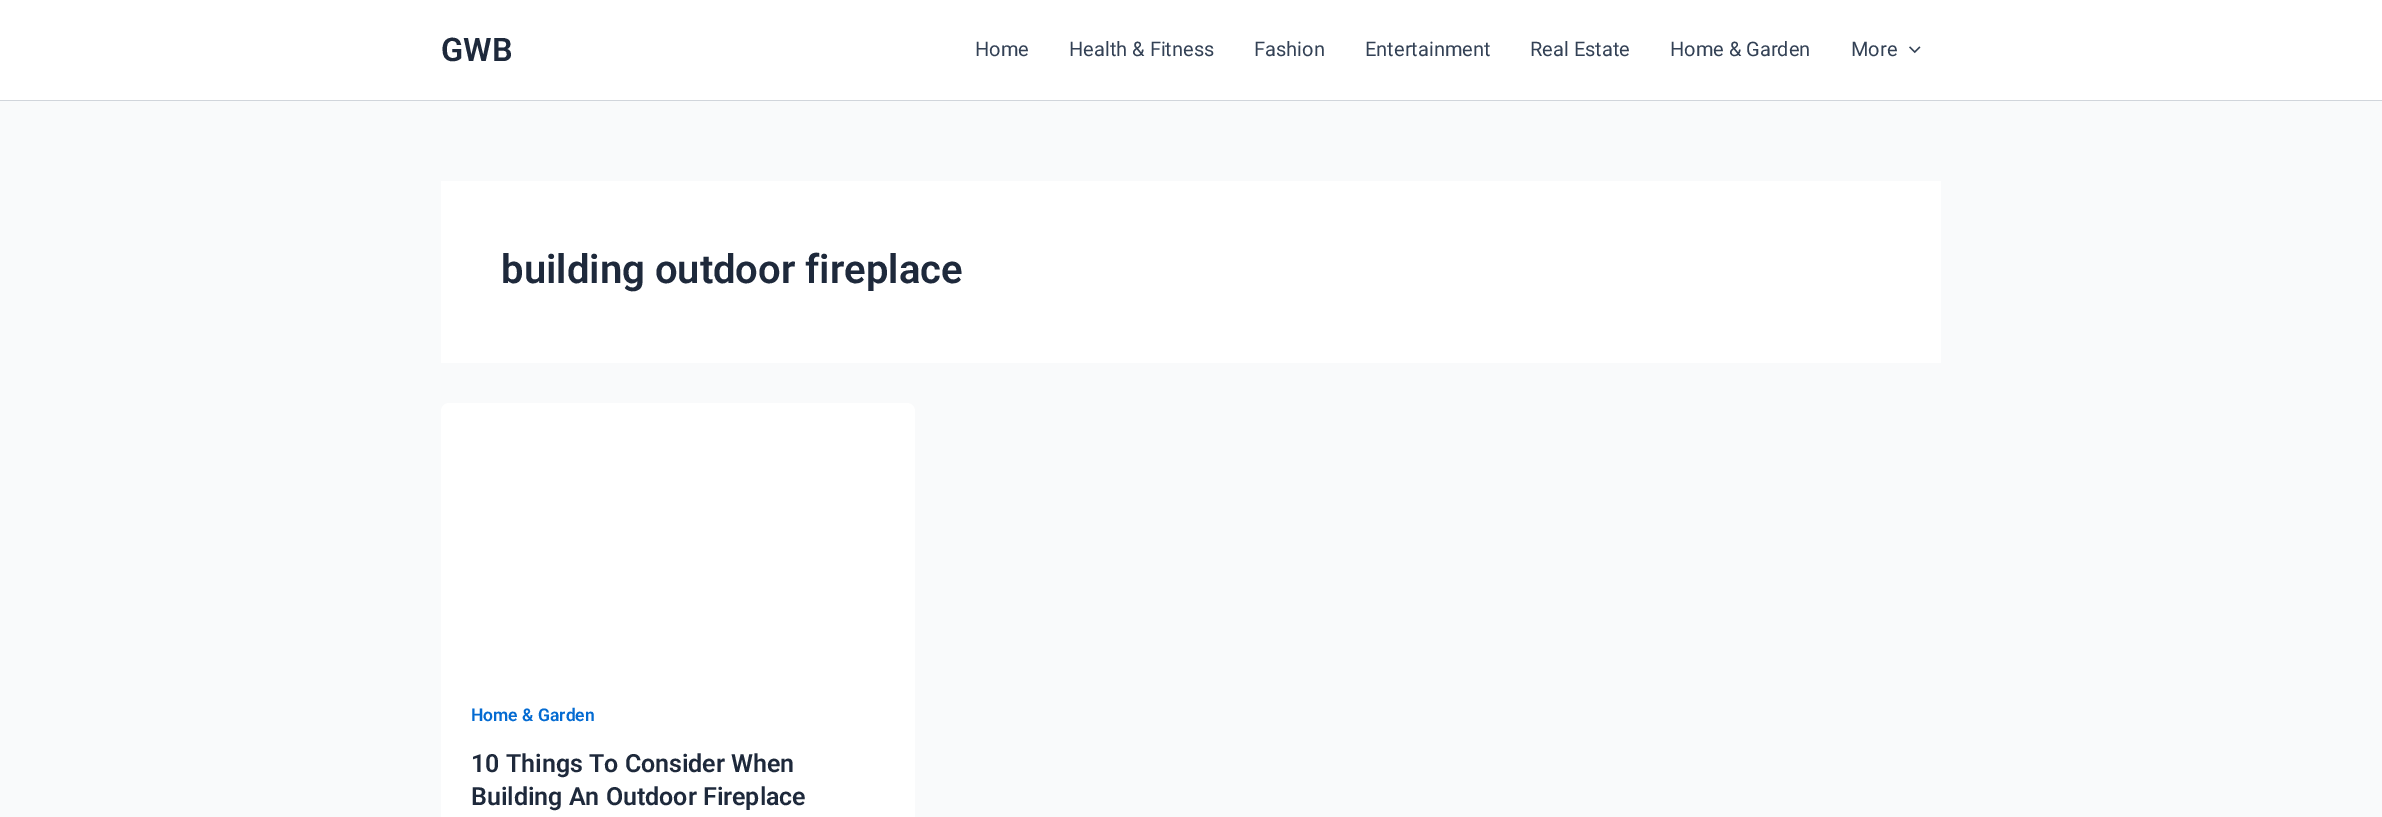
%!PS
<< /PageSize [2382 817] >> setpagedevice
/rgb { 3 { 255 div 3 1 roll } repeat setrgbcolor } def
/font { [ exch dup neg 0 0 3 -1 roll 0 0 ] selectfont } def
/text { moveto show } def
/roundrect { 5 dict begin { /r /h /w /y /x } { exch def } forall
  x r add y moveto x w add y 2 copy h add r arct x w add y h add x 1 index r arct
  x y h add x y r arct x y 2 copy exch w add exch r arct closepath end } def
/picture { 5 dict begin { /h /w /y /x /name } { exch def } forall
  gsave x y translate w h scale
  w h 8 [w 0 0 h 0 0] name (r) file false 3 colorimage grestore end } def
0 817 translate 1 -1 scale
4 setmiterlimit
249 250 251 rgb
0 0 2382 817 rectfill
255 255 255 rgb
0 0 2382 100 rectfill
209 213 219 rgb
0 100 2382 1 rectfill
(img_01.rgb) 1909 46 12 8 picture
255 255 255 rgb
441 181 1500 182 rectfill
441 403 474 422 8 roundrect fill
/Roboto-SemiBold 32.5 font
30 41 59 rgb
(GWB) 441 61 text
/Roboto-Regular 20 font
51 65 85 rgb
(Home) 975 56 text
(Health & Fitness) 1069 56 text
(Fashion) 1254 56 text
(Entertainment) 1365 56 text
(Real Estate) 1530 56 text
(Home & Garden) 1670 56 text
(More) 1851 56 text
/Roboto-SemiBold 40 font
30 41 59 rgb
(building outdoor fireplace) 501 283 text
/Roboto-SemiBold 17.5 font
4 107 210 rgb
(Home & Garden) 471 721 text
/Roboto-SemiBold 25 font
30 41 59 rgb
(10 Things To Consider When) 471 772 text
(Building An Outdoor Fireplace) 471 805 text
showpage
